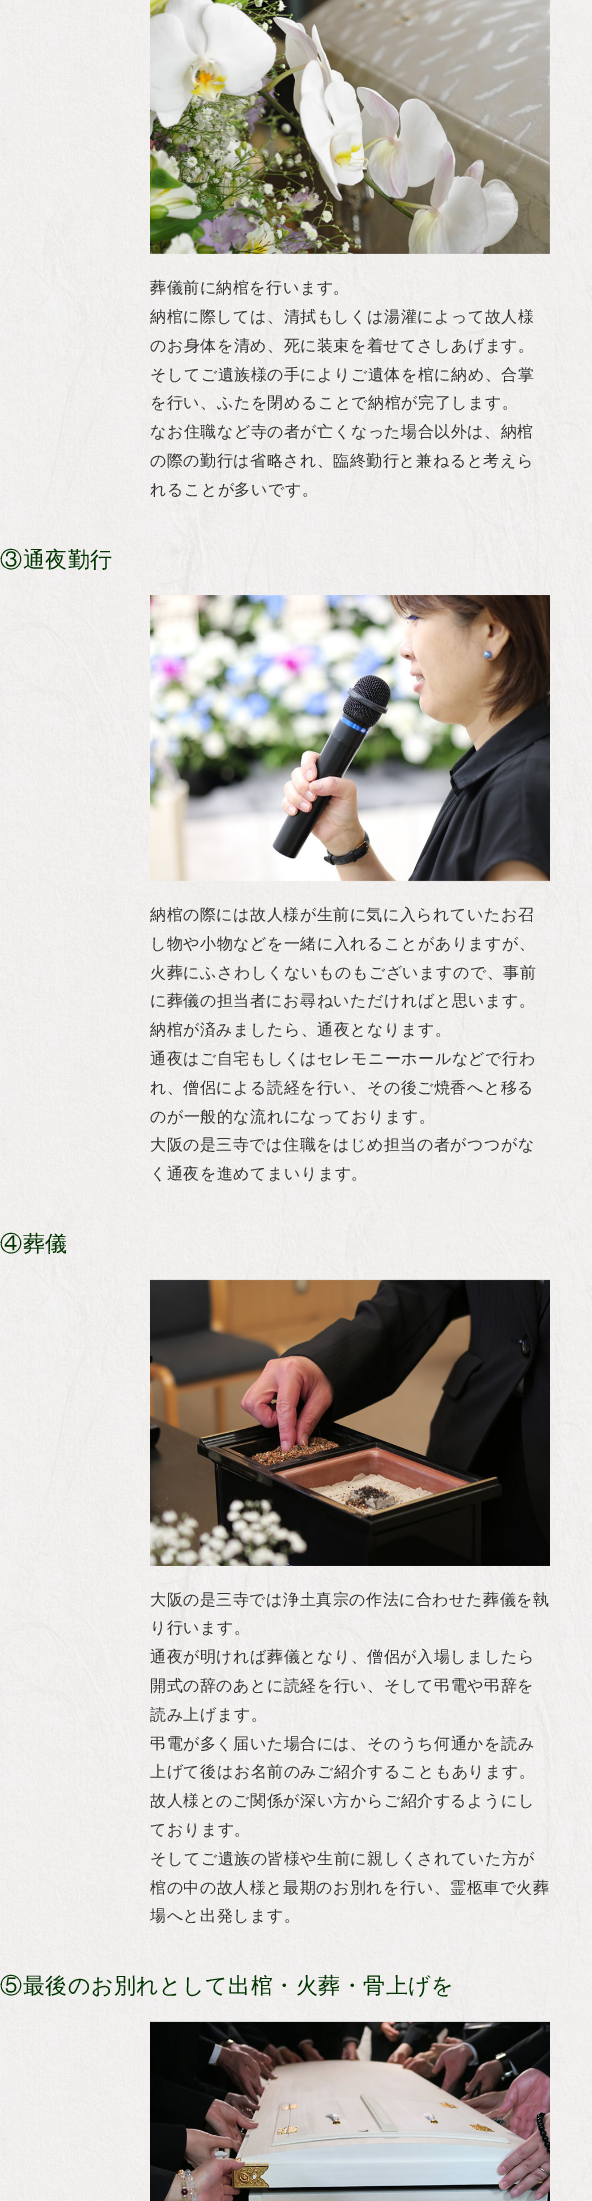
%!PS
<< /PageSize [592 2201] >> setpagedevice
/rgb { 3 { 255 div 3 1 roll } repeat setrgbcolor } def
/font { [ exch dup neg 0 0 3 -1 roll 0 0 ] selectfont } def
/picture { 5 dict begin { /h /w /y /x /name } { exch def } forall
  gsave x y translate w h scale
  w h 8 [w 0 0 h 0 0] name (r) file false 3 colorimage grestore end } def
0 2201 translate 1 -1 scale
4 setmiterlimit
255 255 255 rgb
0 0 592 2201 rectfill
(img_01.rgb) 0 0 592 2201 picture
(img_02.rgb) 150 0 400 254 picture
(img_03.rgb) 150 595 400 287 picture
(img_04.rgb) 150 1279 400 287 picture
(img_05.rgb) 150 2021 400 180 picture
/WenQuanYiZenHei-Medium 16 font
51 51 51 rgb
150 293 moveto 0.5 0 (葬儀前に納棺を行います。) ashow
150 322 moveto 0.5 0 (納棺に際しては、清拭もしくは湯灌によって故人様) ashow
150 351 moveto 0.5 0 (のお身体を清め、死に装束を着せてさしあげます。) ashow
150 380 moveto 0.5 0 (そしてご遺族様の手によりご遺体を棺に納め、合掌) ashow
150 408 moveto 0.5 0 (を行い、ふたを閉めることで納棺が完了します。) ashow
150 437 moveto 0.5 0 (なお住職など寺の者が亡くなった場合以外は、納棺) ashow
150 466 moveto 0.5 0 (の際の勤行は省略され、臨終勤行と兼ねると考えら) ashow
150 495 moveto 0.5 0 (れることが多いです。) ashow
/WenQuanYiZenHei-Medium 22 font
0 51 0 rgb
0 567 moveto 0.5 0 (③通夜勤行) ashow
/WenQuanYiZenHei-Medium 16 font
51 51 51 rgb
150 920 moveto 0.5 0 (納棺の際には故人様が生前に気に入られていたお召) ashow
150 949 moveto 0.5 0 (し物や小物などを一緒に入れることがありますが、) ashow
150 978 moveto 0.5 0 (火葬にふさわしくないものもございますので、事前) ashow
150 1006 moveto 0.5 0 (に葬儀の担当者にお尋ねいただければと思います。) ashow
150 1035 moveto 0.5 0 (納棺が済みましたら、通夜となります。) ashow
150 1064 moveto 0.5 0 (通夜はご自宅もしくはセレモニーホールなどで行わ) ashow
150 1093 moveto 0.5 0 (れ、僧侶による読経を行い、その後ご焼香へと移る) ashow
150 1122 moveto 0.5 0 (のが一般的な流れになっております。) ashow
150 1150 moveto 0.5 0 (大阪の是三寺では住職をはじめ担当の者がつつがな) ashow
150 1179 moveto 0.5 0 (く通夜を進めてまいります。) ashow
/WenQuanYiZenHei-Medium 22 font
0 51 0 rgb
0 1251 moveto 0.5 0 (④葬儀) ashow
/WenQuanYiZenHei-Medium 16 font
51 51 51 rgb
150 1605 moveto 0.5 0 (大阪の是三寺では浄土真宗の作法に合わせた葬儀を執) ashow
150 1633 moveto 0.5 0 (り行います。) ashow
150 1662 moveto 0.5 0 (通夜が明ければ葬儀となり、僧侶が入場しましたら) ashow
150 1691 moveto 0.5 0 (開式の辞のあとに読経を行い、そして弔電や弔辞を) ashow
150 1720 moveto 0.5 0 (読み上げます。) ashow
150 1749 moveto 0.5 0 (弔電が多く届いた場合には、そのうち何通かを読み) ashow
150 1777 moveto 0.5 0 (上げて後はお名前のみご紹介することもあります。) ashow
150 1806 moveto 0.5 0 (故人様とのご関係が深い方からご紹介するようにし) ashow
150 1835 moveto 0.5 0 (ております。) ashow
150 1864 moveto 0.5 0 (そしてご遺族の皆様や生前に親しくされていた方が) ashow
150 1893 moveto 0.5 0 (棺の中の故人様と最期のお別れを行い、霊柩車で火葬) ashow
150 1921 moveto 0.5 0 (場へと出発します。) ashow
/WenQuanYiZenHei-Medium 22 font
0 51 0 rgb
0 1993 moveto 0.5 0 (⑤最後のお別れとして出棺・火葬・骨上げを) ashow
showpage
